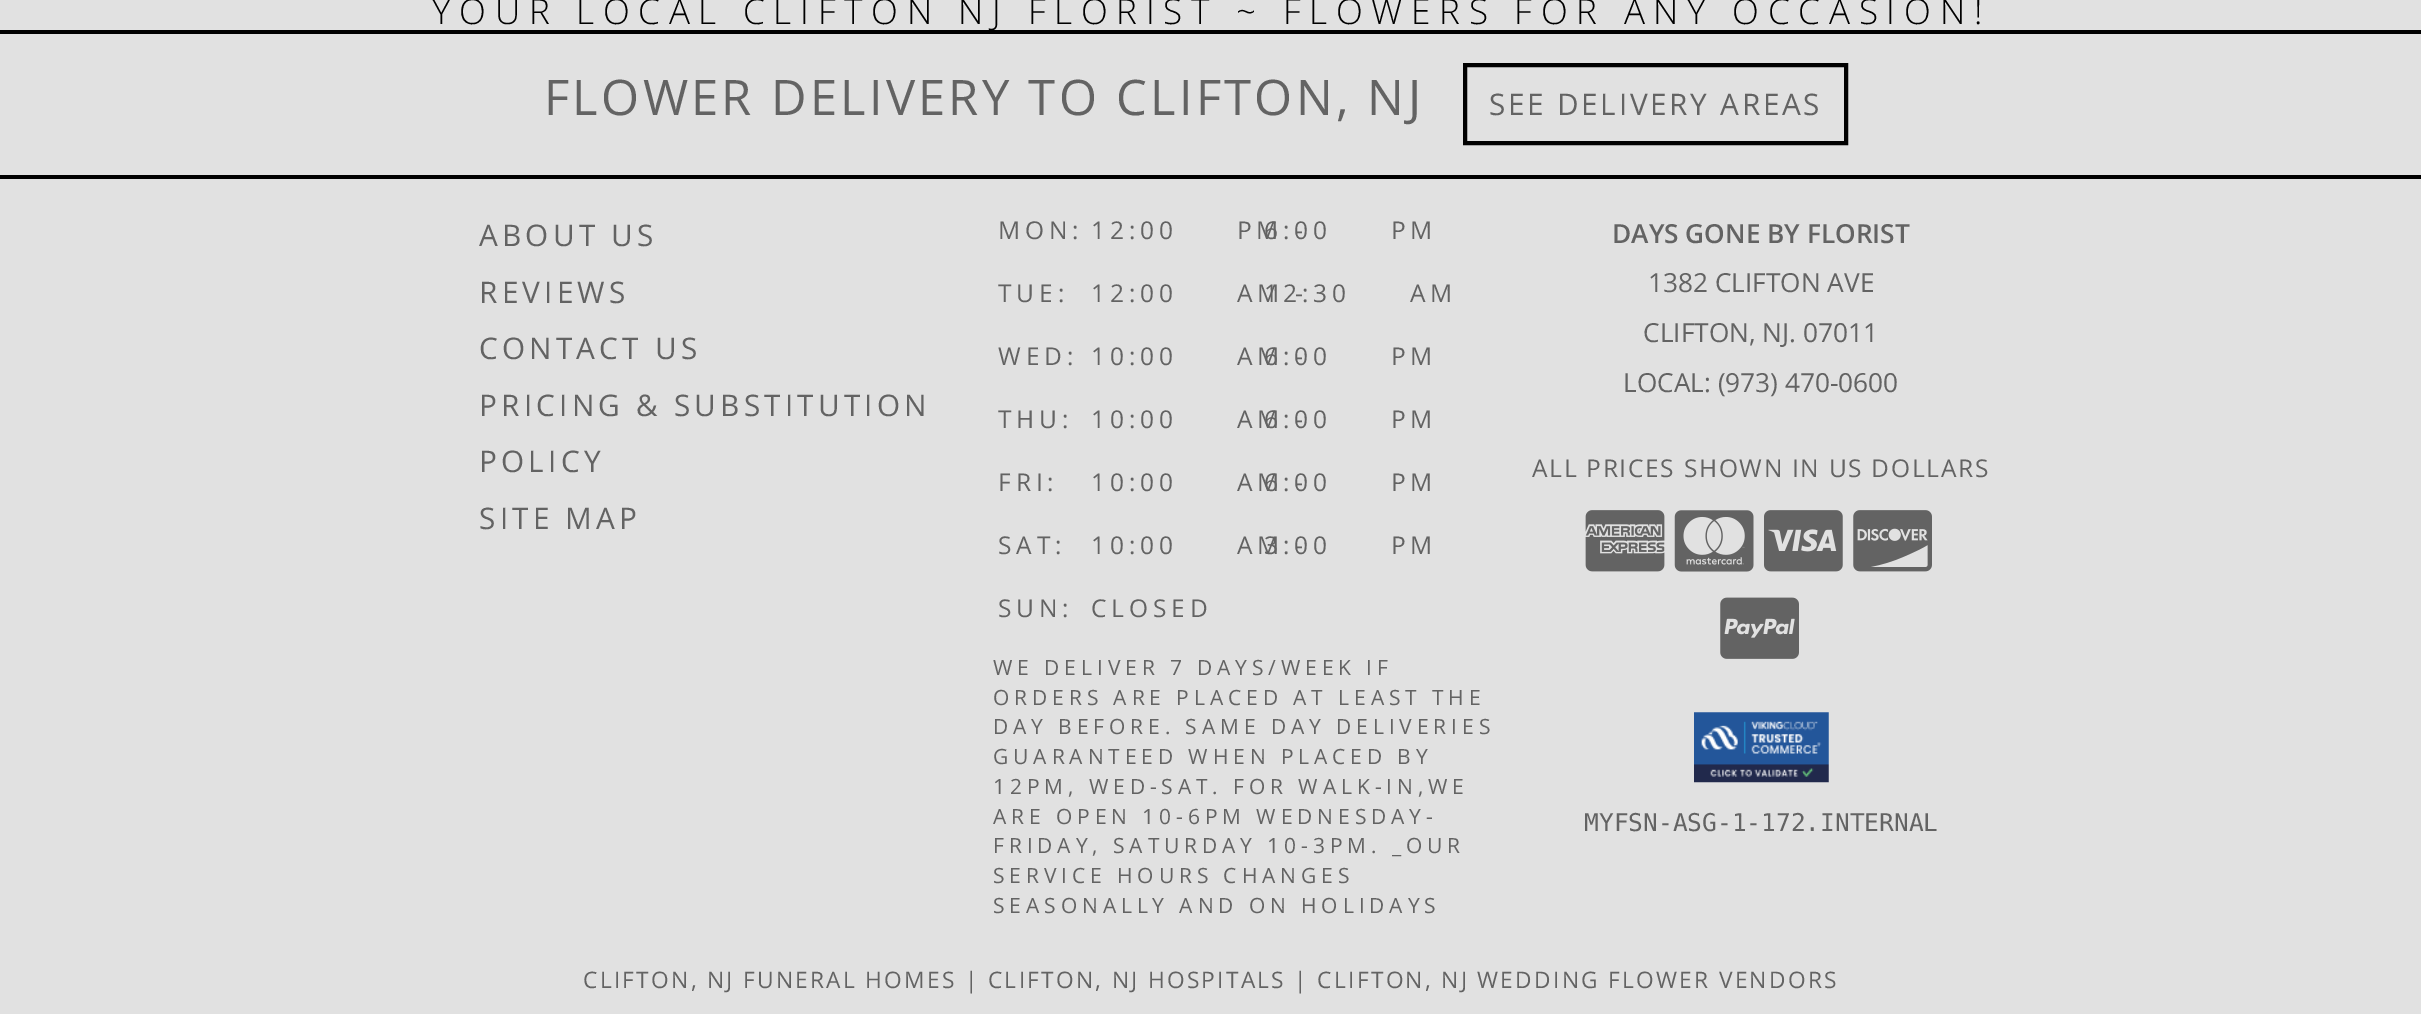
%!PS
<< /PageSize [2421 1014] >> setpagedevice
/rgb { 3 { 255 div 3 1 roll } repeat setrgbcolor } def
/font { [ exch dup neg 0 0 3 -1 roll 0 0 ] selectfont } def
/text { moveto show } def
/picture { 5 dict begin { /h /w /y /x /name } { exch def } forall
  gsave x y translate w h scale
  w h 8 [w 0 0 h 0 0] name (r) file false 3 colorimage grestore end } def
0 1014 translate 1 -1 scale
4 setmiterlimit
225 225 225 rgb
0 0 2421 1014 rectfill
0 0 0 rgb
0 30 2421 4 rectfill
0 175 2421 4 rectfill
4 setlinewidth
1465 65 381 78 rectstroke
(img_01.rgb) 1585 510 80 62 picture
(img_02.rgb) 1674 510 80 62 picture
(img_03.rgb) 1764 510 79 62 picture
(img_04.rgb) 1853 510 79 62 picture
(img_05.rgb) 1720 597 79 62 picture
(img_06.rgb) 1694 712 135 71 picture
/OpenSans-Light 35 font
432 24 moveto 8.75 0 (YOUR LOCAL CLIFTON NJ FLORIST ~ FLOWERS FOR ANY OCCASION!) ashow
/OpenSans-Regular 49 font
99 99 99 rgb
544 115 moveto 3.2 0 (FLOWER DELIVERY TO CLIFTON, NJ) ashow
/OpenSans-Regular 29.75 font
1489 115 moveto 2.7 0 (SEE DELIVERY AREAS) ashow
479 246 moveto 4.2 0 (ABOUT US) ashow
479 303 moveto 4.2 0 (REVIEWS) ashow
479 359 moveto 4.2 0 (CONTACT US) ashow
479 416 moveto 4.2 0 (PRICING & SUBSTITUTION) ashow
479 472 moveto 4.2 0 (POLICY) ashow
479 529 moveto 4.2 0 (SITE MAP) ashow
/OpenSans-Regular 24.5 font
998 239 moveto 4.9 0 (MON:) ashow
1091 239 moveto 4.9 0 (12:00 PM -) ashow
1264 239 moveto 4.9 0 (6:00 PM) ashow
998 302 moveto 4.9 0 (TUE:) ashow
1091 302 moveto 4.9 0 (12:00 AM -) ashow
1264 302 moveto 4.9 0 (12:30 AM) ashow
998 365 moveto 4.9 0 (WED:) ashow
1091 365 moveto 4.9 0 (10:00 AM -) ashow
1264 365 moveto 4.9 0 (6:00 PM) ashow
998 428 moveto 4.9 0 (THU:) ashow
1091 428 moveto 4.9 0 (10:00 AM -) ashow
1264 428 moveto 4.9 0 (6:00 PM) ashow
998 491 moveto 4.9 0 (FRI:) ashow
1091 491 moveto 4.9 0 (10:00 AM -) ashow
1264 491 moveto 4.9 0 (6:00 PM) ashow
998 554 moveto 4.9 0 (SAT:) ashow
1091 554 moveto 4.9 0 (10:00 AM -) ashow
1264 554 moveto 4.9 0 (3:00 PM) ashow
998 617 moveto 4.9 0 (SUN:) ashow
1091 617 moveto 4.9 0 (CLOSED) ashow
/OpenSans-Regular 21 font
993 675 moveto 4.9 0 (WE DELIVER 7 DAYS/WEEK IF) ashow
993 705 moveto 4.9 0 (ORDERS ARE PLACED AT LEAST THE) ashow
993 734 moveto 4.9 0 (DAY BEFORE. SAME DAY DELIVERIES) ashow
993 764 moveto 4.9 0 (GUARANTEED WHEN PLACED BY) ashow
993 794 moveto 4.9 0 (12PM, WED-SAT. FOR WALK-IN,WE) ashow
993 824 moveto 4.9 0 (ARE OPEN 10-6PM WEDNESDAY-) ashow
993 853 moveto 4.9 0 (FRIDAY, SATURDAY 10-3PM. _OUR) ashow
993 883 moveto 4.9 0 (SERVICE HOURS CHANGES) ashow
993 913 moveto 4.9 0 (SEASONALLY AND ON HOLIDAYS) ashow
/OpenSans-SemiBold 26.25 font
(DAYS GONE BY FLORIST) 1612 243 text
/OpenSans-Regular 26.25 font
(1382 CLIFTON AVE) 1648 292 text
(CLIFTON, NJ. 07011) 1643 342 text
(LOCAL: \(973\) 470-0600) 1623 392 text
/OpenSans-Regular 24.5 font
1532 477 moveto 1.7 0 (ALL PRICES SHOWN IN US DOLLARS) ashow
/DejaVuSansMono-Regular 24.5 font
(MYFSN-ASG-1-172.INTERNAL) 1584 831 text
/OpenSans-Regular 22.75 font
583 988 moveto 2.27 0 (CLIFTON, NJ FUNERAL HOMES | CLIFTON, NJ HOSPITALS | CLIFTON, NJ WEDDING FLOWER VENDORS) ashow
showpage
